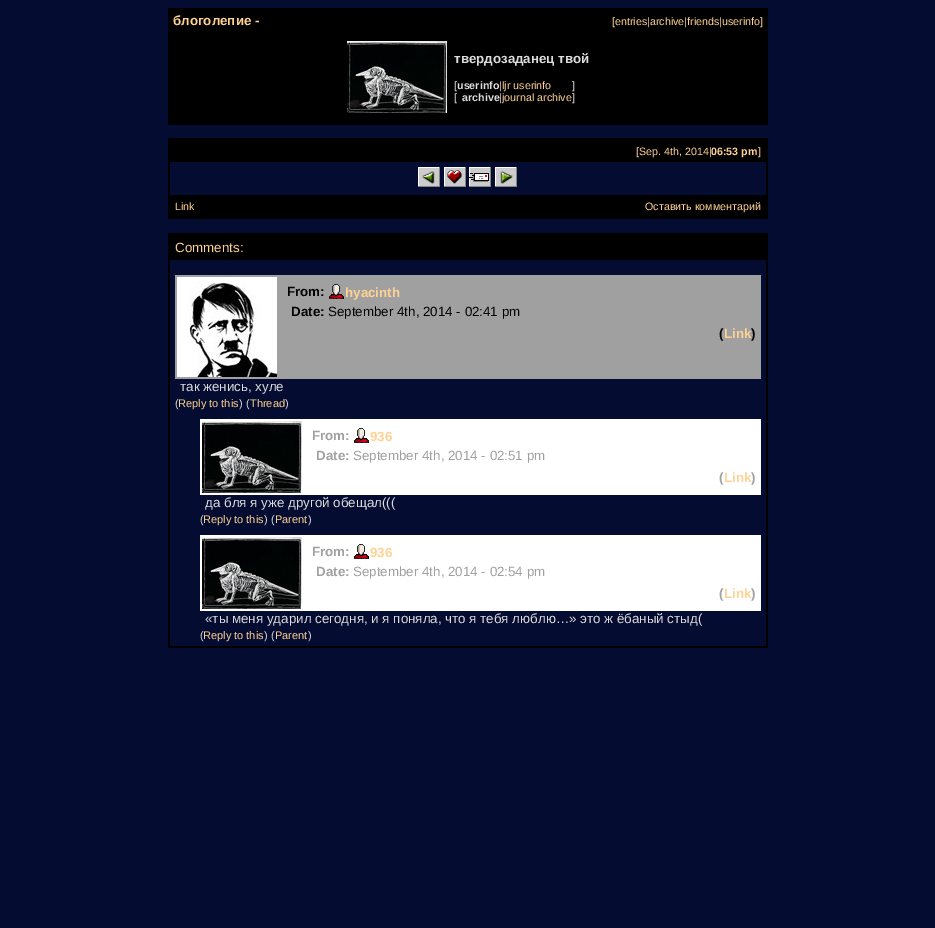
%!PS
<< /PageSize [935 928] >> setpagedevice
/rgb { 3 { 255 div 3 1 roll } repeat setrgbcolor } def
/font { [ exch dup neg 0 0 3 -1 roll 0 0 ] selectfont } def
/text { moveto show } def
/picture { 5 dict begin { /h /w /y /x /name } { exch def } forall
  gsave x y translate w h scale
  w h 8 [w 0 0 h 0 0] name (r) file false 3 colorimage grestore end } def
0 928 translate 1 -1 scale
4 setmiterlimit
4 12 49 rgb
0 0 935 928 rectfill
0 0 0 rgb
168 8 600 117 rectfill
(img_01.rgb) 347 41 100 72 picture
168 138 600 81 rectfill
4 12 49 rgb
170 162 596 33 rectfill
(img_02.rgb) 418 167 22 20 picture
(img_03.rgb) 444 167 22 20 picture
(img_04.rgb) 469 167 22 20 picture
(img_05.rgb) 495 167 22 20 picture
0 0 0 rgb
168 233 600 415 rectfill
4 12 49 rgb
170 260 596 386 rectfill
160 160 160 rgb
175 275 586 104 rectfill
(img_06.rgb) 177 277 100 100 picture
(img_07.rgb) 329 284 15 15 picture
255 255 255 rgb
200 419 561 76 rectfill
(img_01.rgb) 202 421 100 72 picture
(img_08.rgb) 354 428 15 15 picture
200 535 561 76 rectfill
(img_01.rgb) 202 537 100 72 picture
(img_08.rgb) 354 544 15 15 picture
/LiberationSans-Bold 13.35 font
255 210 147 rgb
(блоголепие -) 173 25 text
/LiberationSans-Regular 10.7 font
([entries|archive|friends|userinfo]) 612 25 text
/LiberationSans-Bold 13.35 font
220 220 220 rgb
(твердозаданец твой) 454 63 text
/LiberationSans-Regular 10.7 font
([) 454 89 text
/LiberationSans-Bold 10.7 font
(userinfo) 457 89 text
/LiberationSans-Regular 10.7 font
(|) 499 89 text
255 210 147 rgb
(ljr userinfo) 502 89 text
220 220 220 rgb
(]) 572 89 text
([) 454 101 text
/LiberationSans-Bold 10.7 font
(archive) 462 101 text
/LiberationSans-Regular 10.7 font
(|) 499 101 text
255 210 147 rgb
(journal archive) 502 101 text
220 220 220 rgb
(]) 572 101 text
255 210 147 rgb
([Sep. 4th, 2014|) 636 155 text
/LiberationSans-Bold 10.7 font
(06:53 pm) 711 155 text
/LiberationSans-Regular 10.7 font
(]) 758 155 text
(Link) 175 210 text
(Оставить комментарий) 645 210 text
/LiberationSans-Regular 13.35 font
(Comments:) 175 252 text
/LiberationSans-Bold 13.35 font
0 0 0 rgb
(From:) 287 296 text
255 210 147 rgb
(hyacinth) 345 297 text
0 0 0 rgb
(Date:) 291 316 text
/LiberationSans-Regular 13.35 font
(September 4th, 2014 - 02:41 pm) 328 316 text
/LiberationSans-Bold 13.35 font
(\() 719 338 text
255 210 147 rgb
(Link) 724 338 text
0 0 0 rgb
(\)) 751 338 text
/LiberationSans-Regular 13.35 font
220 220 220 rgb
(так женись, хуле) 180 391 text
/LiberationSans-Regular 11 font
(\() 175 407 text
255 210 147 rgb
(Reply to this) 178 407 text
220 220 220 rgb
(\) \() 239 407 text
255 210 147 rgb
(Thread) 250 407 text
220 220 220 rgb
(\)) 285 407 text
/LiberationSans-Bold 13.35 font
160 160 160 rgb
(From:) 312 440 text
255 210 147 rgb
(936) 370 441 text
160 160 160 rgb
(Date:) 316 460 text
/LiberationSans-Regular 13.35 font
(September 4th, 2014 - 02:51 pm) 353 460 text
/LiberationSans-Bold 13.35 font
(\() 719 482 text
255 210 147 rgb
(Link) 724 482 text
160 160 160 rgb
(\)) 751 482 text
/LiberationSans-Regular 13.35 font
220 220 220 rgb
(да бля я уже другой обещал\(\(\() 205 507 text
/LiberationSans-Regular 11 font
(\() 200 523 text
255 210 147 rgb
(Reply to this) 203 523 text
220 220 220 rgb
(\) \() 264 523 text
255 210 147 rgb
(Parent) 275 523 text
220 220 220 rgb
(\)) 308 523 text
/LiberationSans-Bold 13.35 font
160 160 160 rgb
(From:) 312 556 text
255 210 147 rgb
(936) 370 557 text
160 160 160 rgb
(Date:) 316 576 text
/LiberationSans-Regular 13.35 font
(September 4th, 2014 - 02:54 pm) 353 576 text
/LiberationSans-Bold 13.35 font
(\() 719 598 text
255 210 147 rgb
(Link) 724 598 text
160 160 160 rgb
(\)) 751 598 text
/LiberationSans-Regular 13.35 font
220 220 220 rgb
(«ты меня ударил сегодня, и я поняла, что я тебя люблю…» это ж ёбаный стыд\() 205 623 text
/LiberationSans-Regular 11 font
(\() 200 639 text
255 210 147 rgb
(Reply to this) 203 639 text
220 220 220 rgb
(\) \() 264 639 text
255 210 147 rgb
(Parent) 275 639 text
220 220 220 rgb
(\)) 308 639 text
showpage
